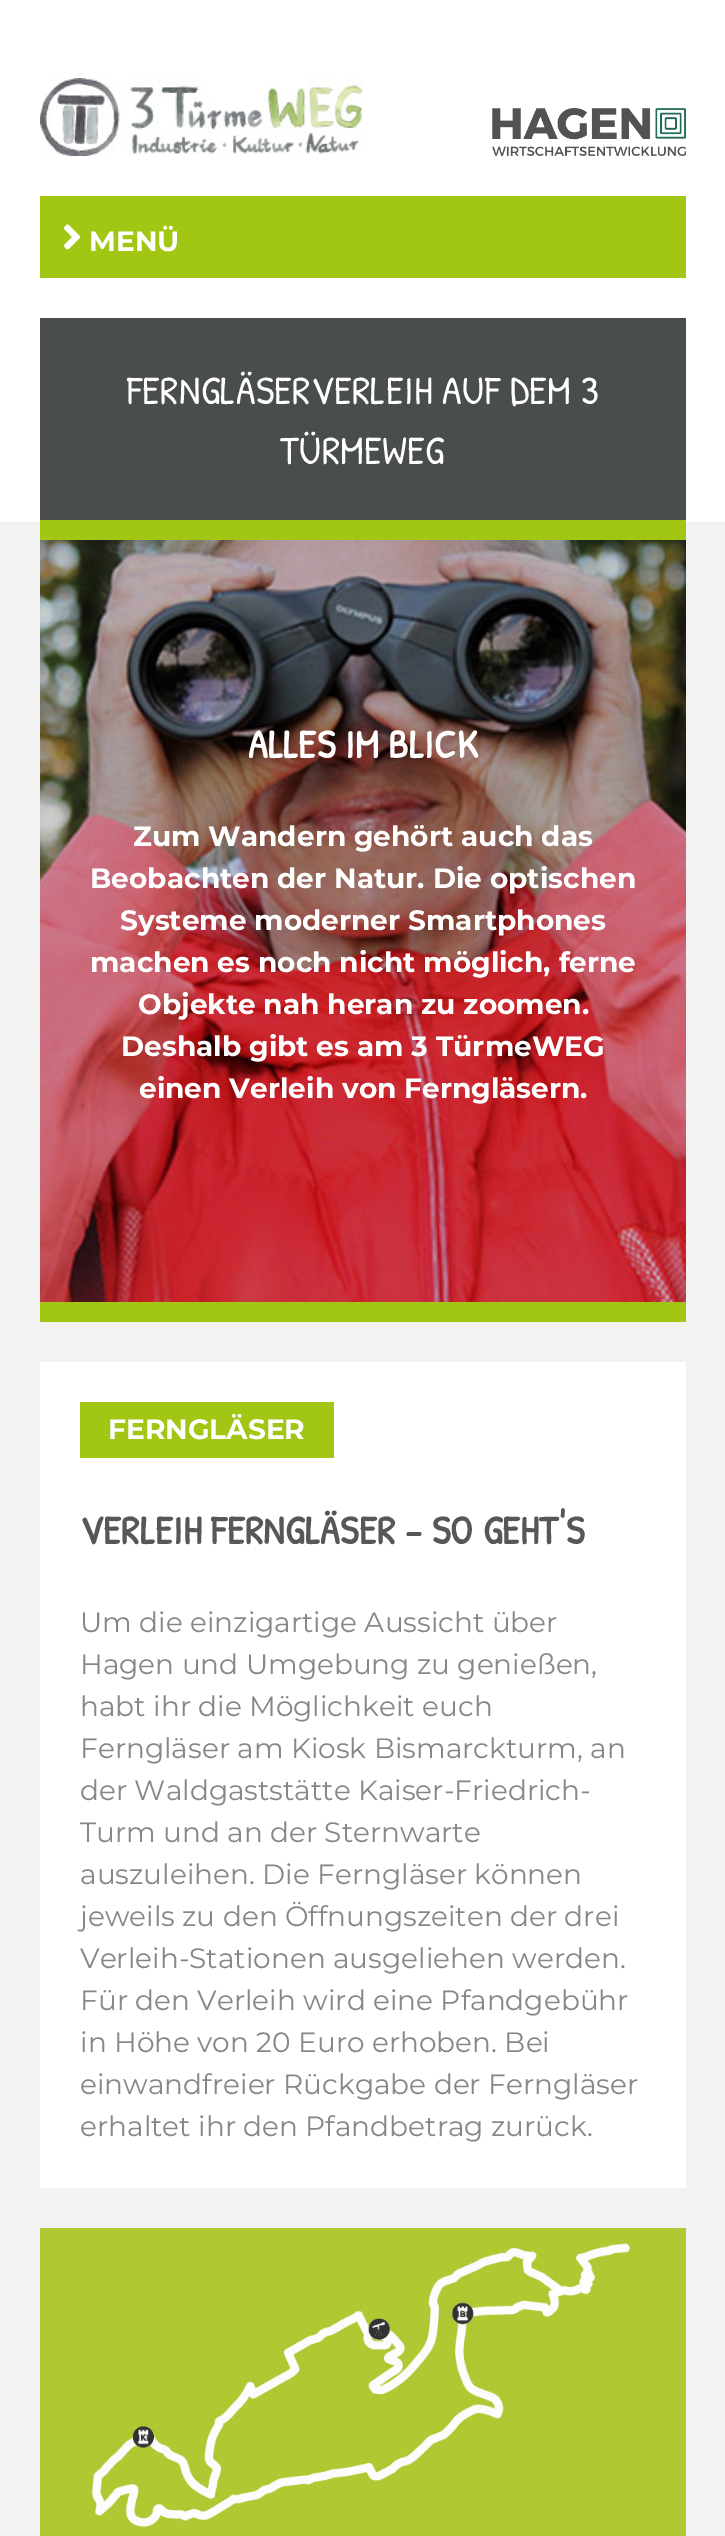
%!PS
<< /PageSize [725 2536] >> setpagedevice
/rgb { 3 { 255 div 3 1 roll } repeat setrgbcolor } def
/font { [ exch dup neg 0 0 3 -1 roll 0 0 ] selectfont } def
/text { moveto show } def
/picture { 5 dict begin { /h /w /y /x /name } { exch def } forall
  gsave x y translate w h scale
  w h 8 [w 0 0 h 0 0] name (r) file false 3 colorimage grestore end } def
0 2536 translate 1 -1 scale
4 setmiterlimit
242 242 242 rgb
0 0 725 2536 rectfill
255 255 255 rgb
0 0 725 522 rectfill
(img_01.rgb) 40 78 322 78 picture
(img_02.rgb) 492 108 194 48 picture
162 198 20 rgb
40 196 646 82 rectfill
(img_03.rgb) 64 224 16 26 picture
74 77 78 rgb
40 318 646 202 rectfill
162 198 20 rgb
40 520 646 20 rectfill
(img_04.rgb) 40 540 646 762 picture
40 1302 646 20 rectfill
255 255 255 rgb
40 1362 646 826 rectfill
162 198 20 rgb
80 1402 254 56 rectfill
(img_05.rgb) 40 2228 646 308 picture
/Montserrat-Thin 28 font
255 255 255 rgb
(MENÜ) 89 251 text
/PatrickHand-Regular 40 font
127 404 moveto 0.4 0 (FERNGLÄSERVERLEIH AUF DEM 3) ashow
280 464 moveto 0.4 0 (TÜRMEWEG) ashow
/PatrickHand-Bold 40 font
248 758 moveto 0.4 0 (ALLES IM BLICK) ashow
/Montserrat-Thin 28 font
(Zum Wandern gehört auch das) 133 846 text
(Beobachten der Natur. Die optischen) 90 888 text
(Systeme moderner Smartphones) 120 930 text
(machen es noch nicht möglich, ferne) 90 972 text
(Objekte nah heran zu zoomen.) 138 1014 text
(Deshalb gibt es am 3 TürmeWEG) 121 1056 text
(einen Verleih von Ferngläsern.) 139 1098 text
(FERNGLÄSER) 108 1439 text
/PatrickHand-Bold 40 font
87 87 86 rgb
80 1544 moveto 0.4 0 (VERLEIH FERNGLÄSER – SO GEHT'S) ashow
/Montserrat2-Thin 28 font
135 135 135 rgb
(Um die einzigartige Aussicht über) 80 1632 text
(Hagen und Umgebung zu genießen,) 80 1674 text
(habt ihr die Möglichkeit euch) 80 1716 text
(Ferngläser am Kiosk Bismarckturm, an) 80 1758 text
(der Waldgaststätte Kaiser-Friedrich-) 80 1800 text
(Turm und an der Sternwarte) 80 1842 text
(auszuleihen. Die Ferngläser können) 80 1884 text
(jeweils zu den Öffnungszeiten der drei) 80 1926 text
(Verleih-Stationen ausgeliehen werden.) 80 1968 text
(Für den Verleih wird eine Pfandgebühr) 80 2010 text
(in Höhe von 20 Euro erhoben. Bei) 80 2052 text
(einwandfreier Rückgabe der Ferngläser) 80 2094 text
(erhaltet ihr den Pfandbetrag zurück.) 80 2136 text
showpage
